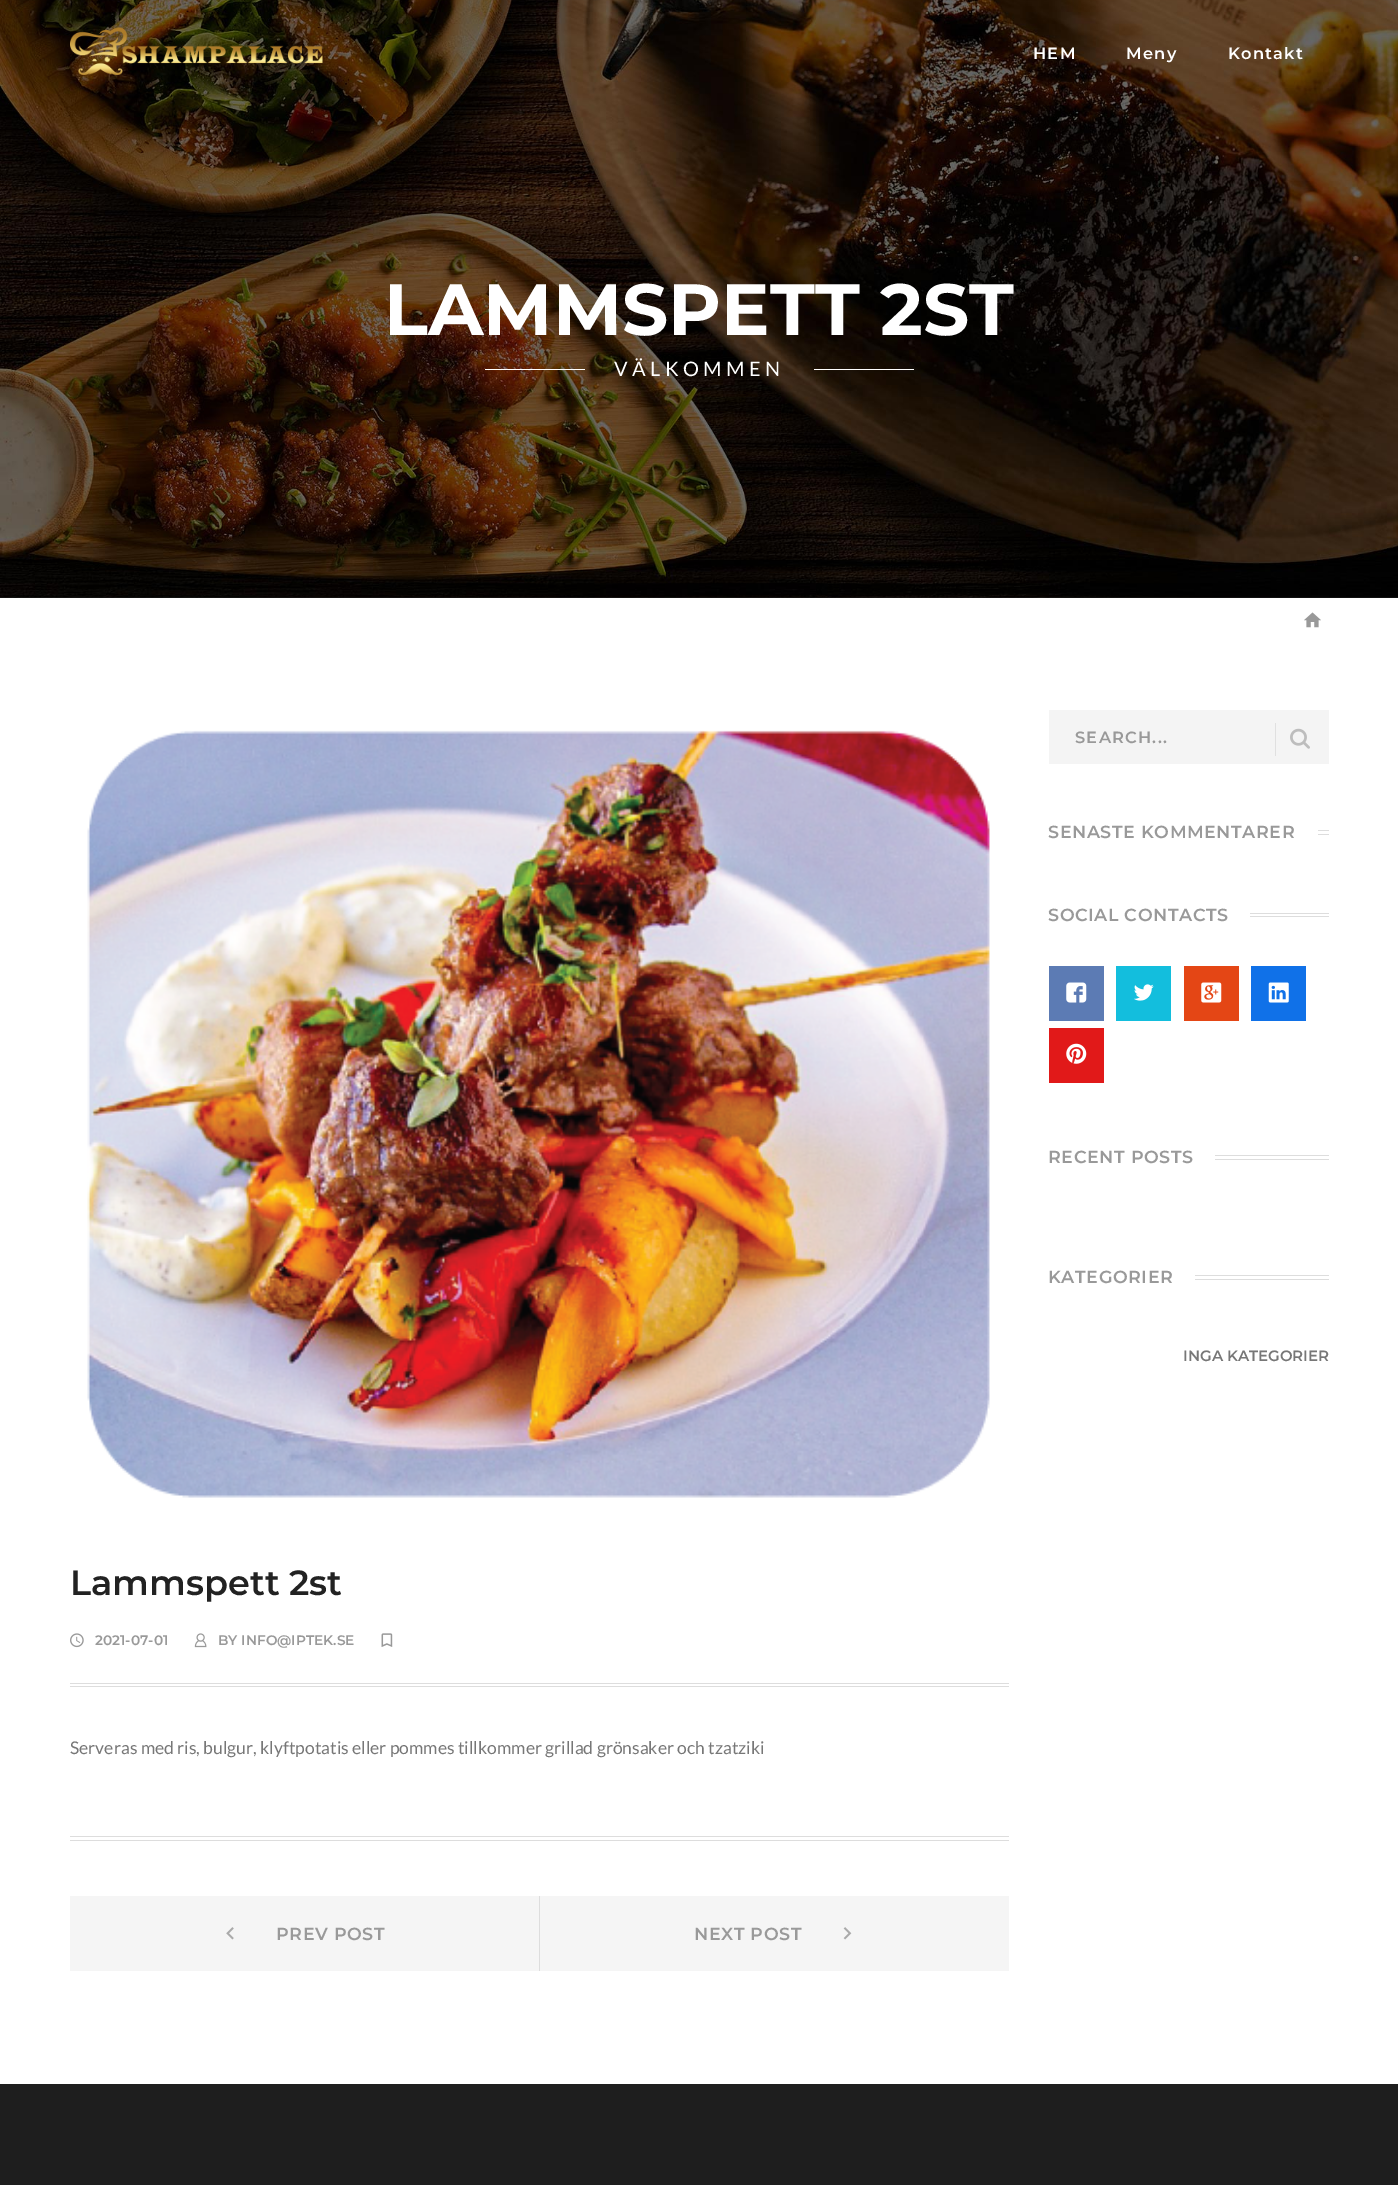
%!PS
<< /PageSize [1398 2185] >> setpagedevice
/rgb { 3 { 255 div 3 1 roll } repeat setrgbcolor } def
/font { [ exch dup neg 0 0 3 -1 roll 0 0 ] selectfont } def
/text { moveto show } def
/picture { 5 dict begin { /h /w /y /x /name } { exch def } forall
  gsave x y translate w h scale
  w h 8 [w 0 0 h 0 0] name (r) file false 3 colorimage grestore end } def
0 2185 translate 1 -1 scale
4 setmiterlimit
255 255 255 rgb
0 0 1398 2185 rectfill
30 30 30 rgb
0 597 1398 1 rectfill
(img_02.rgb) 0 0 1398 598 picture
(img_01.rgb) 70 27 253 48 picture
255 255 255 rgb
485 369 100 1 rectfill
814 369 100 1 rectfill
(img_03.rgb) 1304 612 17 16 picture
244 244 244 rgb
1049 710 280 54 rectfill
224 224 224 rgb
1275 723 1 33 rectfill
(img_04.rgb) 1290 728 20 21 picture
221 221 221 rgb
1318 830 11 1 rectfill
1318 834 11 1 rectfill
1250 913 79 1 rectfill
1250 916 79 1 rectfill
92 123 180 rgb
1049 966 55 55 rectfill
(img_05.rgb) 1066 982 21 21 picture
19 190 221 rgb
1116 966 55 55 rectfill
(img_06.rgb) 1134 984 20 17 picture
228 70 21 rgb
1184 966 55 55 rectfill
(img_07.rgb) 1201 982 21 21 picture
16 113 232 rgb
1251 966 55 55 rectfill
(img_08.rgb) 1268 982 21 21 picture
225 25 25 rgb
1049 1028 55 55 rectfill
(img_09.rgb) 1066 1043 21 21 picture
221 221 221 rgb
1215 1155 114 1 rectfill
1215 1159 114 1 rectfill
1195 1275 134 1 rectfill
1195 1279 134 1 rectfill
(img_10.rgb) 87 730 903 768 picture
(img_11.rgb) 70 1633 14 15 picture
(img_12.rgb) 194 1633 13 15 picture
(img_13.rgb) 381 1633 12 14 picture
70 1683 939 1 rectfill
70 1686 939 1 rectfill
70 1836 939 1 rectfill
70 1840 939 1 rectfill
245 245 245 rgb
70 1896 939 75 rectfill
(img_14.rgb) 226 1927 8 13 picture
221 221 221 rgb
539 1896 1 75 rectfill
(img_15.rgb) 843 1927 9 13 picture
30 30 30 rgb
0 2084 1398 101 rectfill
/Montserrat-SemiBold 16.25 font
255 255 255 rgb
1033 59 moveto 1.25 0 (HEM) ashow
1126 59 moveto 1.25 0 (Meny) ashow
1228 59 moveto 1.25 0 (Kontakt) ashow
/Montserrat-Bold 72.5 font
(LAMMSPETT 2ST) 384 335 text
/Lato-Regular 20 font
614 376 moveto 4.4 0 (VÄLKOMMEN) ashow
/Montserrat-SemiBold 16.25 font
153 153 153 rgb
1075 743 moveto 1.25 0 (SEARCH...) ashow
/Montserrat-SemiBold 17.5 font
1048 838 moveto 0.6 0 (SENASTE KOMMENTARER) ashow
1048 921 moveto 0.6 0 (SOCIAL CONTACTS) ashow
1048 1163 moveto 0.6 0 (RECENT POSTS) ashow
1048 1283 moveto 0.6 0 (KATEGORIER) ashow
/Montserrat-SemiBold 15 font
119 119 119 rgb
(INGA KATEGORIER) 1183 1361 text
/Montserrat-SemiBold 35 font
34 34 34 rgb
(Lammspett 2st) 70 1595 text
/Montserrat-SemiBold 13.75 font
153 153 153 rgb
(2021-07-01) 95 1645 text
(BY INFO@IPTEK.SE) 218 1645 text
/Lato-Regular 17.5 font
119 119 119 rgb
(Serveras med ris, bulgur, klyftpotatis eller pommes tillkommer grillad grönsaker och tzatziki) 70 1754 text
/Montserrat-SemiBold 17.5 font
153 153 153 rgb
276 1940 moveto 0.6 0 (PREV POST) ashow
694 1940 moveto 0.6 0 (NEXT POST) ashow
showpage
